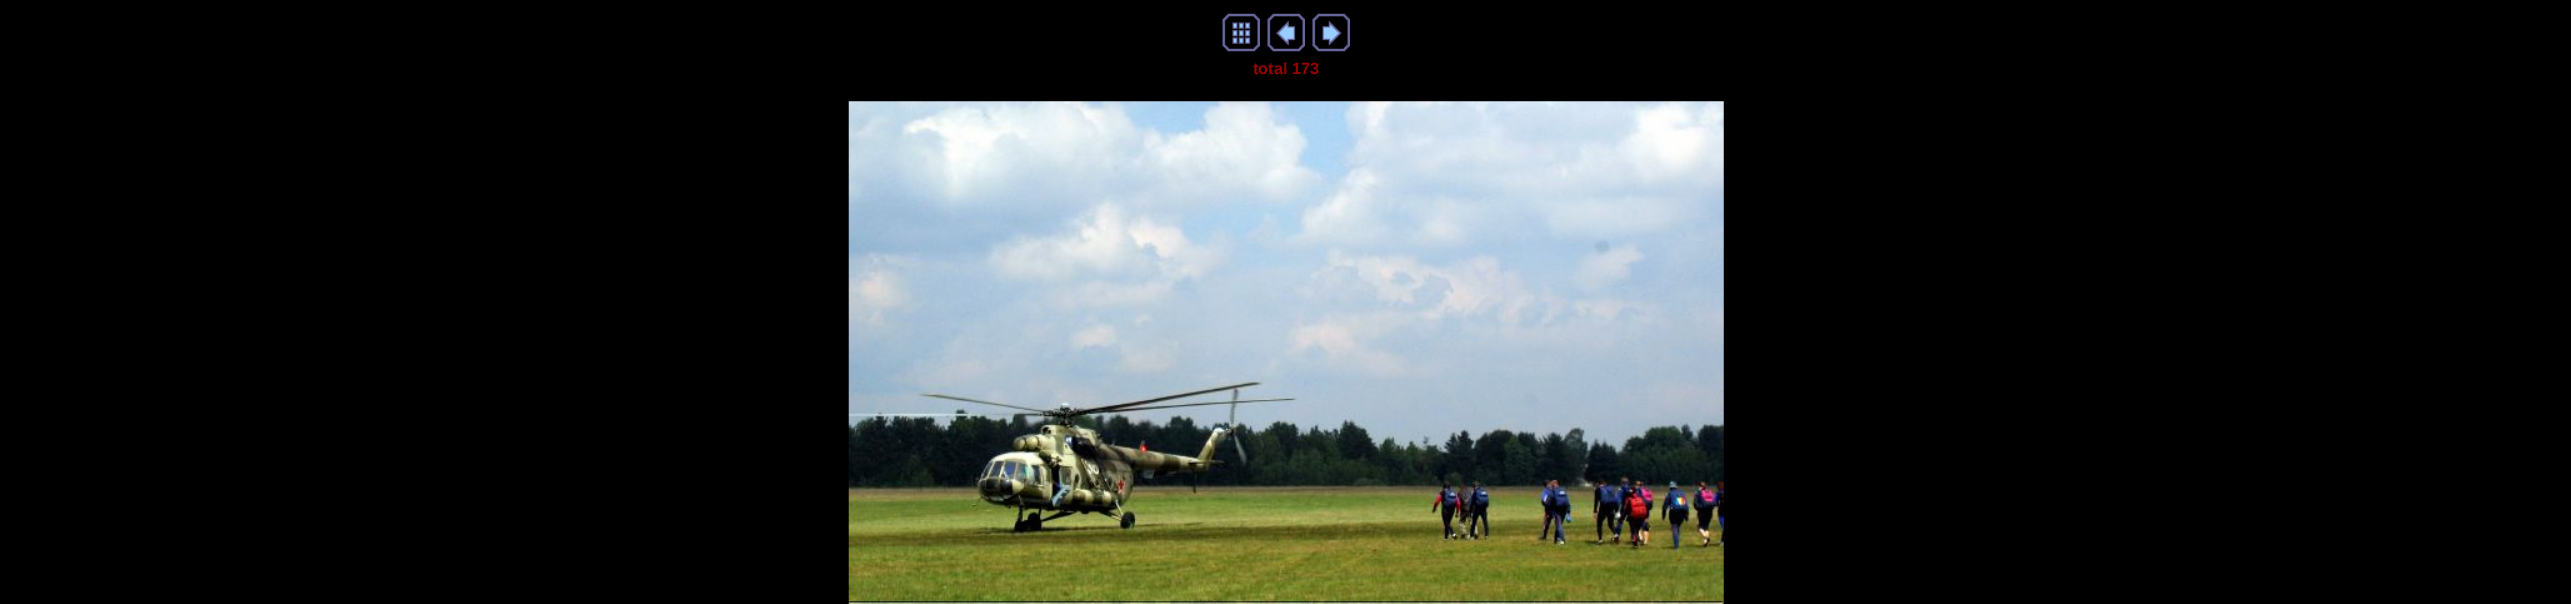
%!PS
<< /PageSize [2571 604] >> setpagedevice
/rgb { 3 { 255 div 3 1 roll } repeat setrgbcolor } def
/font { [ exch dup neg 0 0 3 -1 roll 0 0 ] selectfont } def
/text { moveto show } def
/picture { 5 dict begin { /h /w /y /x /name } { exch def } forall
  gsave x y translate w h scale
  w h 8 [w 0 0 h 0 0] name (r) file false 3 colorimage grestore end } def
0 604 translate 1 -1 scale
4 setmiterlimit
0 0 0 rgb
0 0 2571 604 rectfill
(img_01.rgb) 1222 13 38 39 picture
(img_02.rgb) 1267 13 38 39 picture
(img_03.rgb) 1312 13 38 39 picture
(img_04.rgb) 848 101 876 503 picture
/LiberationSans-Bold 16.25 font
153 0 0 rgb
(total 173) 1253 74 text
showpage
